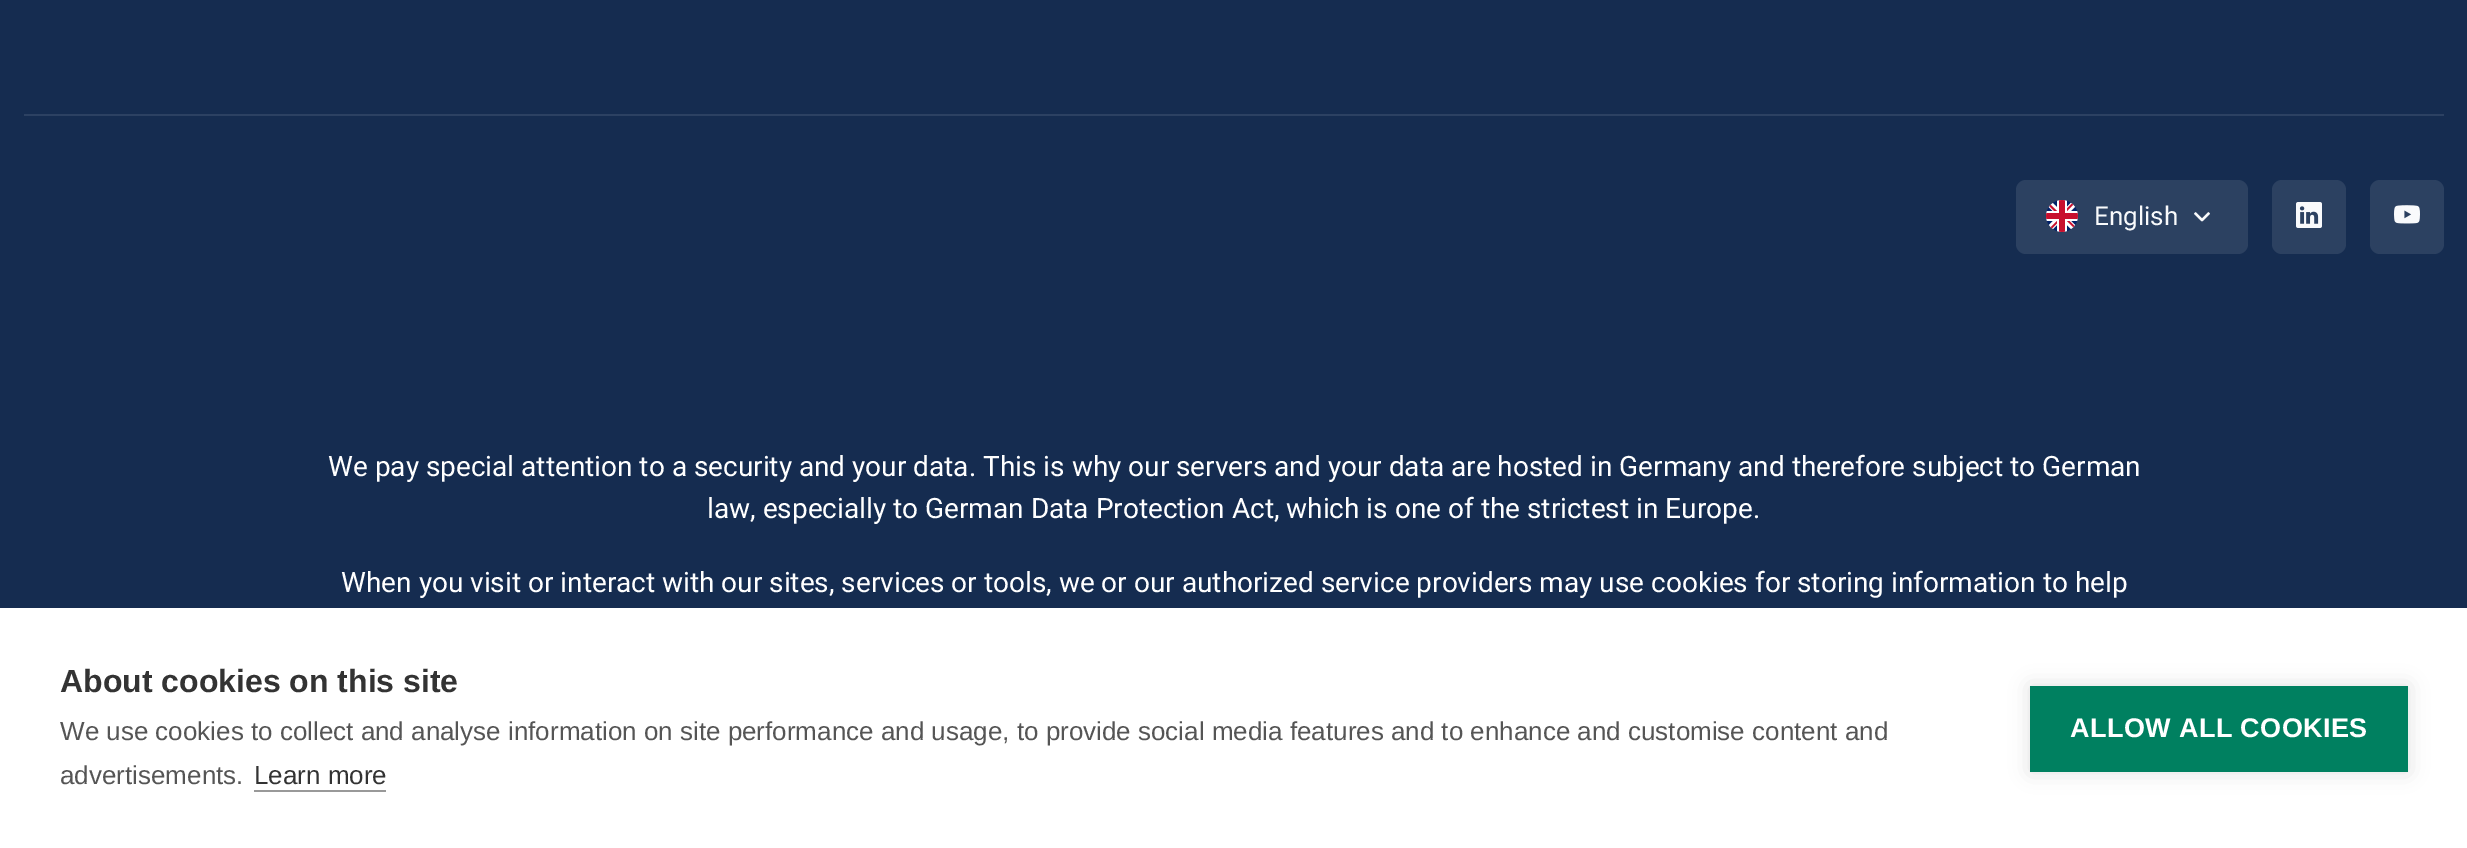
%!PS
<< /PageSize [2467 848] /PageUsesTransparency true >> setpagedevice
/rgb { 3 { 255 div 3 1 roll } repeat setrgbcolor } def
/font { [ exch dup neg 0 0 3 -1 roll 0 0 ] selectfont } def
/text { moveto show } def
/alpha { dup .setfillconstantalpha .setstrokeconstantalpha } def
/roundrect { 5 dict begin { /r /h /w /y /x } { exch def } forall
  x r add y moveto x w add y 2 copy h add r arct x w add y h add x 1 index r arct
  x y h add x y r arct x y 2 copy exch w add exch r arct closepath end } def
/shadow { 12 dict begin { /a /b /q /h /w /y /x } { exch def } forall gsave /was 0 def
  9 -2 -9 { dup b mul 4 div /e exch def 1 sub .425 mul 2.718 exch exp 1 add a .99 .min exch div /now exch def
    1 1 now sub 1 was sub div sub alpha /was now def
    w h .min e 2 mul add 0 gt { x e sub y e sub w e 2 mul add h e 2 mul add
      q e add b .6 mul add w h .min 2 div e add .min 0 .max roundrect fill } if } for grestore end } def
/picture { 5 dict begin { /h /w /y /x /name } { exch def } forall
  gsave x y translate w h scale
  w h 8 [w 0 0 h 0 0] name (r) file false 3 colorimage grestore end } def
0 .pushpdf14devicefilter
0 848 translate 1 -1 scale
4 setmiterlimit
21 44 80 rgb
0 0 2467 848 rectfill
44 65 98 rgb
24 114 2420 2 rectfill
44 65 97 rgb
2016 180 232 74 10 roundrect fill
(img_01.rgb) 2046 200 32 32 picture
(img_02.rgb) 2194 212 16 10 picture
2272 180 74 74 10 roundrect fill
(img_03.rgb) 2296 202 26 26 picture
2370 180 74 74 10 roundrect fill
(img_04.rgb) 2394 205 26 19 picture
255 255 255 rgb
0 608 2467 240 rectfill
153 153 153 rgb
254 790 132 2 rectfill
0 0 0 rgb
2030 686 378 86 0 10 0.12 shadow
0 128 96 rgb
2030 686 378 86 rectfill
/Roboto-Regular 26 font
249 250 252 rgb
(English) 2094 225 text
/Roboto-Regular 28 font
255 255 255 rgb
(We pay special attention to a security and your data. This is why our servers and your data are hosted in Germany and therefore subject to German) 328 476 text
(law, especially to German Data Protection Act, which is one of the strictest in Europe.) 707 518 text
(When you visit or interact with our sites, services or tools, we or our authorized service providers may use cookies for storing information to help) 341 592 text
/LiberationSans-Bold 32 font
51 51 51 rgb
(About cookies on this site) 60 692 text
/LiberationSans-Regular 26 font
85 85 85 rgb
(We use cookies to collect and analyse information on site performance and usage, to provide social media features and to enhance and customise content and) 60 740 text
(advertisements.) 60 784 text
51 51 51 rgb
(Learn more) 254 784 text
/LiberationSans-Bold 27 font
255 255 255 rgb
2070 737 moveto 0.4 0 (ALLOW ALL COOKIES) ashow
.poppdf14devicefilter showpage
